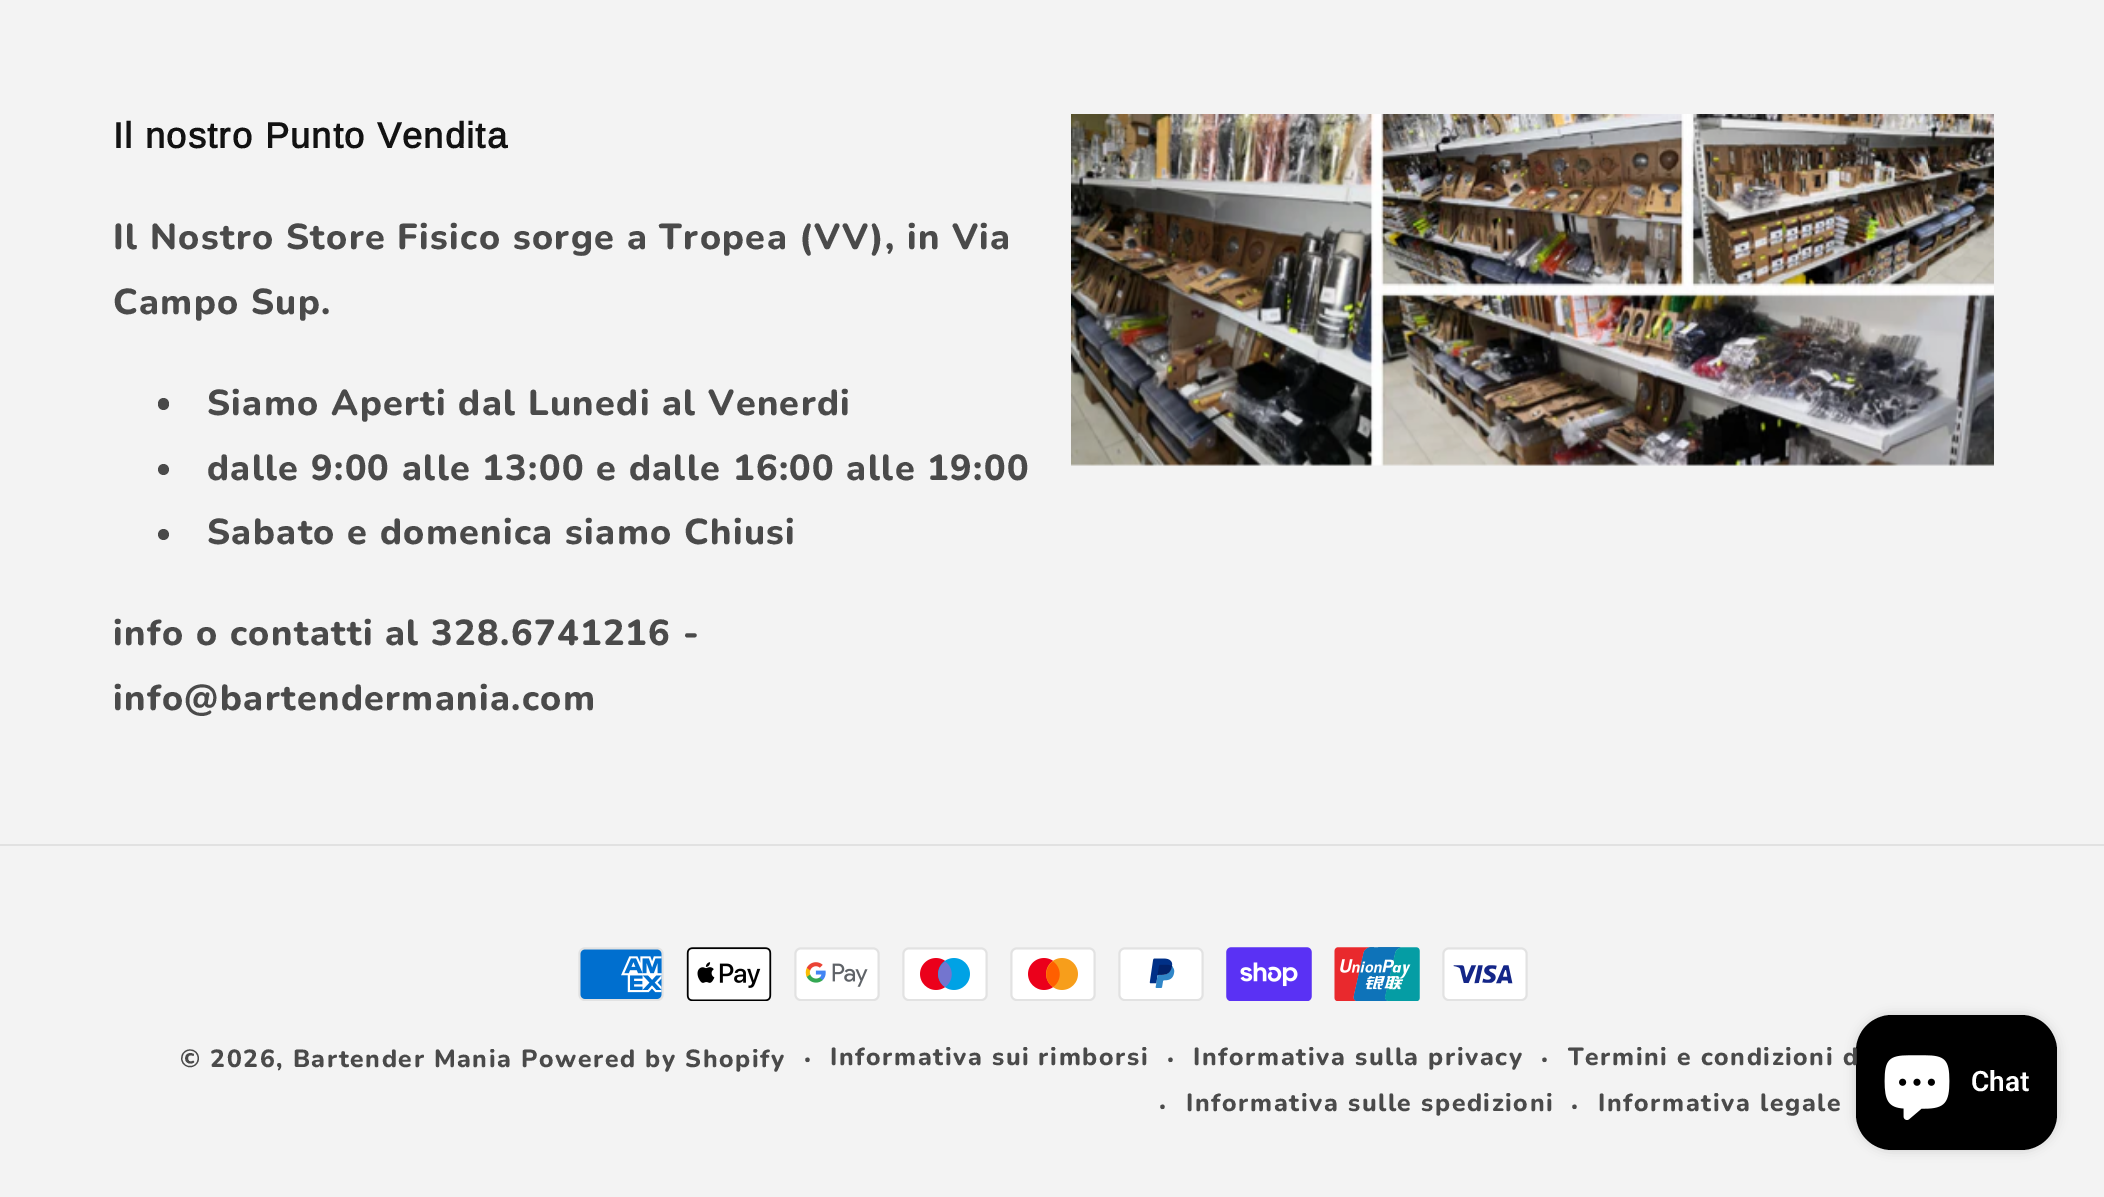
%!PS
<< /PageSize [2104 1197] /PageUsesTransparency true >> setpagedevice
/rgb { 3 { 255 div 3 1 roll } repeat setrgbcolor } def
/font { [ exch dup neg 0 0 3 -1 roll 0 0 ] selectfont } def
/text { moveto show } def
/alpha { dup .setfillconstantalpha .setstrokeconstantalpha } def
/circle { newpath 0 360 arc closepath } def
/roundrect { 5 dict begin { /r /h /w /y /x } { exch def } forall
  x r add y moveto x w add y 2 copy h add r arct x w add y h add x 1 index r arct
  x y h add x y r arct x y 2 copy exch w add exch r arct closepath end } def
/shadow { 12 dict begin { /a /b /q /h /w /y /x } { exch def } forall gsave /was 0 def
  9 -2 -9 { dup b mul 4 div /e exch def 1 sub .425 mul 2.718 exch exp 1 add a .99 .min exch div /now exch def
    1 1 now sub 1 was sub div sub alpha /was now def
    w h .min e 2 mul add 0 gt { x e sub y e sub w e 2 mul add h e 2 mul add
      q e add b .6 mul add w h .min 2 div e add .min 0 .max roundrect fill } if } for grestore end } def
/picture { 5 dict begin { /h /w /y /x /name } { exch def } forall
  gsave x y translate w h scale
  w h 8 [w 0 0 h 0 0] name (r) file false 3 colorimage grestore end } def
0 .pushpdf14devicefilter
0 1197 translate 1 -1 scale
4 setmiterlimit
243 243 243 rgb
0 0 2104 1197 rectfill
74 74 74 rgb
158 398 11 12 5.5 roundrect fill
163.5 469.5 5.5 circle fill
163.5 534.5 5.5 circle fill
(img_01.rgb) 1071 114 923 352 picture
225 225 225 rgb
0 844 2104 2 rectfill
(img_02.rgb) 578 947 86 54 picture
(img_03.rgb) 686 947 86 54 picture
(img_04.rgb) 794 947 86 54 picture
(img_05.rgb) 902 947 86 54 picture
(img_06.rgb) 1010 947 86 54 picture
(img_07.rgb) 1118 947 86 54 picture
(img_08.rgb) 1226 947 86 54 picture
(img_09.rgb) 1334 947 86 54 picture
(img_10.rgb) 1442 947 86 54 picture
0 0 0 rgb
1856 1015 201 135 36 5.5 0.15 shadow
1856 1015 201 135 36 roundrect fill
(img_11.rgb) 1884 1055 66 65 picture
/Arimo-Bold 36 font
18 18 18 rgb
113 148 moveto 1.35 0 (Il nostro Punto Vendita) ashow
/Nunito-ExtraBold 36 font
74 74 74 rgb
113 249 moveto 1.35 0 (Il Nostro Store Fisico sorge a Tropea \(VV\), in Via) ashow
113 314 moveto 1.35 0 (Campo Sup.) ashow
207 415 moveto 1.35 0 (Siamo Aperti dal Lunedi al Venerdi) ashow
207 480 moveto 1.35 0 (dalle 9:00 alle 13:00 e dalle 16:00 alle 19:00) ashow
207 544 moveto 1.35 0 (Sabato e domenica siamo Chiusi) ashow
113 645 moveto 1.35 0 (info o contatti al 328.6741216 -) ashow
113 710 moveto 1.35 0 (info@bartendermania.com) ashow
/Nunito-ExtraBold 24.75 font
180 1067 moveto 1.6 0 (© 2026, Bartender Mania) ashow
521 1067 moveto 1.6 0 (Powered by Shopify) ashow
/Nunito-ExtraBold 27 font
804 1067 moveto 1.6 0 (·) ashow
/Nunito-ExtraBold 24.75 font
830 1065 moveto 1.6 0 (Informativa sui rimborsi) ashow
/Nunito-ExtraBold 27 font
1167 1067 moveto 1.6 0 (·) ashow
/Nunito-ExtraBold 24.75 font
1193 1065 moveto 1.6 0 (Informativa sulla privacy) ashow
/Nunito-ExtraBold 27 font
1541 1067 moveto 1.6 0 (·) ashow
/Nunito-ExtraBold 24.75 font
1568 1065 moveto 1.6 0 (Termini e condizioni d) ashow
/Nunito-ExtraBold 27 font
1159 1114 moveto 1.6 0 (·) ashow
/Nunito-ExtraBold 24.75 font
1186 1111 moveto 1.6 0 (Informativa sulle spedizioni) ashow
/Nunito-ExtraBold 27 font
1571 1114 moveto 1.6 0 (·) ashow
/Nunito-ExtraBold 24.75 font
1598 1111 moveto 1.6 0 (Informativa legale) ashow
/Roboto-SemiBold 28 font
255 255 255 rgb
(Chat) 1971 1091 text
.poppdf14devicefilter showpage
